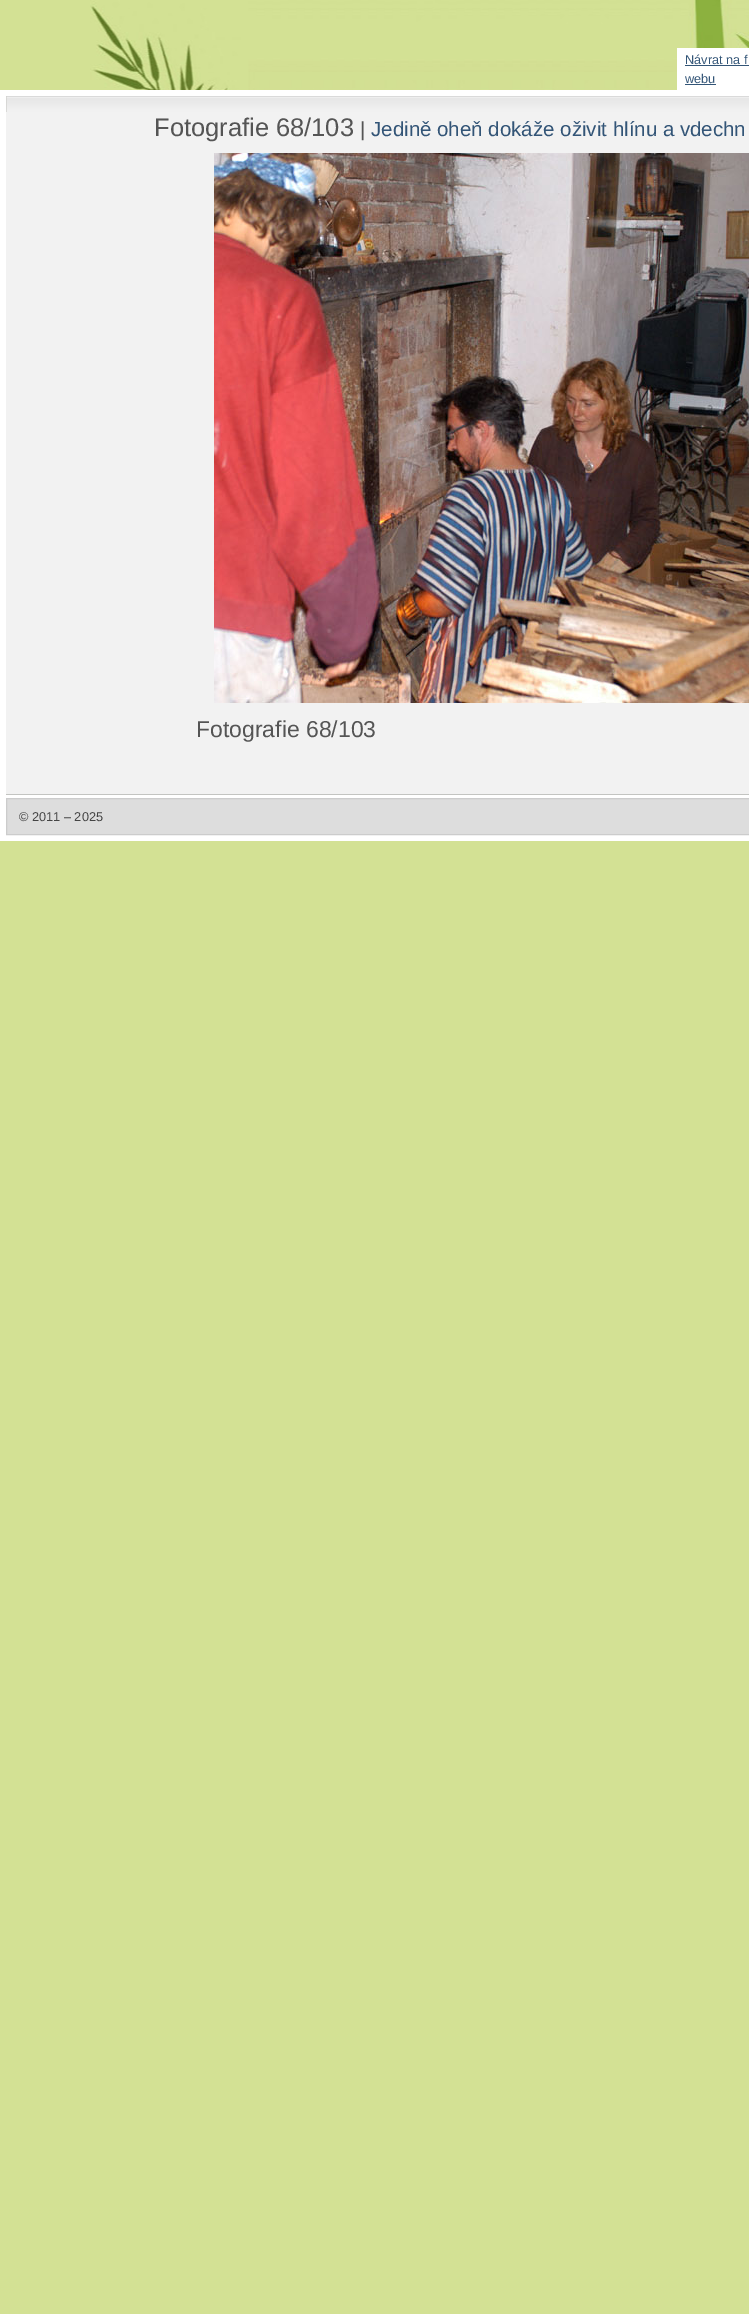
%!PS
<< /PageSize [749 2314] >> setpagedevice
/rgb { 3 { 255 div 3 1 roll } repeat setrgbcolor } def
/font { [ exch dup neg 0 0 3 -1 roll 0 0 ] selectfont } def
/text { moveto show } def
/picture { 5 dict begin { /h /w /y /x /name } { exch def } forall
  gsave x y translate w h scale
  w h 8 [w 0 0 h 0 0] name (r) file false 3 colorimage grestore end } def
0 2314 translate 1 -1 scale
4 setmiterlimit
211 225 148 rgb
0 0 749 2314 rectfill
(img_01.rgb) 90 0 659 90 picture
255 255 255 rgb
677 48 72 42 rectfill
51 85 119 rgb
685 65 64 1 rectfill
685 84 31 1 rectfill
255 255 255 rgb
0 90 749 751 rectfill
242 242 242 rgb
6 112 743 682 rectfill
195 196 193 rgb
6 794 743 1 rectfill
(img_02.rgb) 6 96 743 16 picture
(img_03.rgb) 214 153 535 550 picture
221 221 221 rgb
6.5 798.5 moveto 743 0 rlineto 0 36 rlineto -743 0 rlineto closepath gsave fill grestore
204 204 204 rgb
stroke
/LiberationSans-Regular 12.75 font
51 85 119 rgb
(Návrat na f) 685 64 text
(webu) 685 83 text
/LiberationSans-Regular 25.5 font
85 85 85 rgb
(Fotografie 68/103) 154 136 text
/LiberationSans-Regular 20.5 font
(|) 360 136 text
51 85 119 rgb
(Jedině oheň dokáže oživit hlínu a vdechn) 371 136 text
/LiberationSans-Regular 23 font
85 85 85 rgb
(Fotografie 68/103) 196 737 text
/LiberationSans-Regular 12.75 font
68 68 68 rgb
(© 2011 – 2025) 19 821 text
showpage
